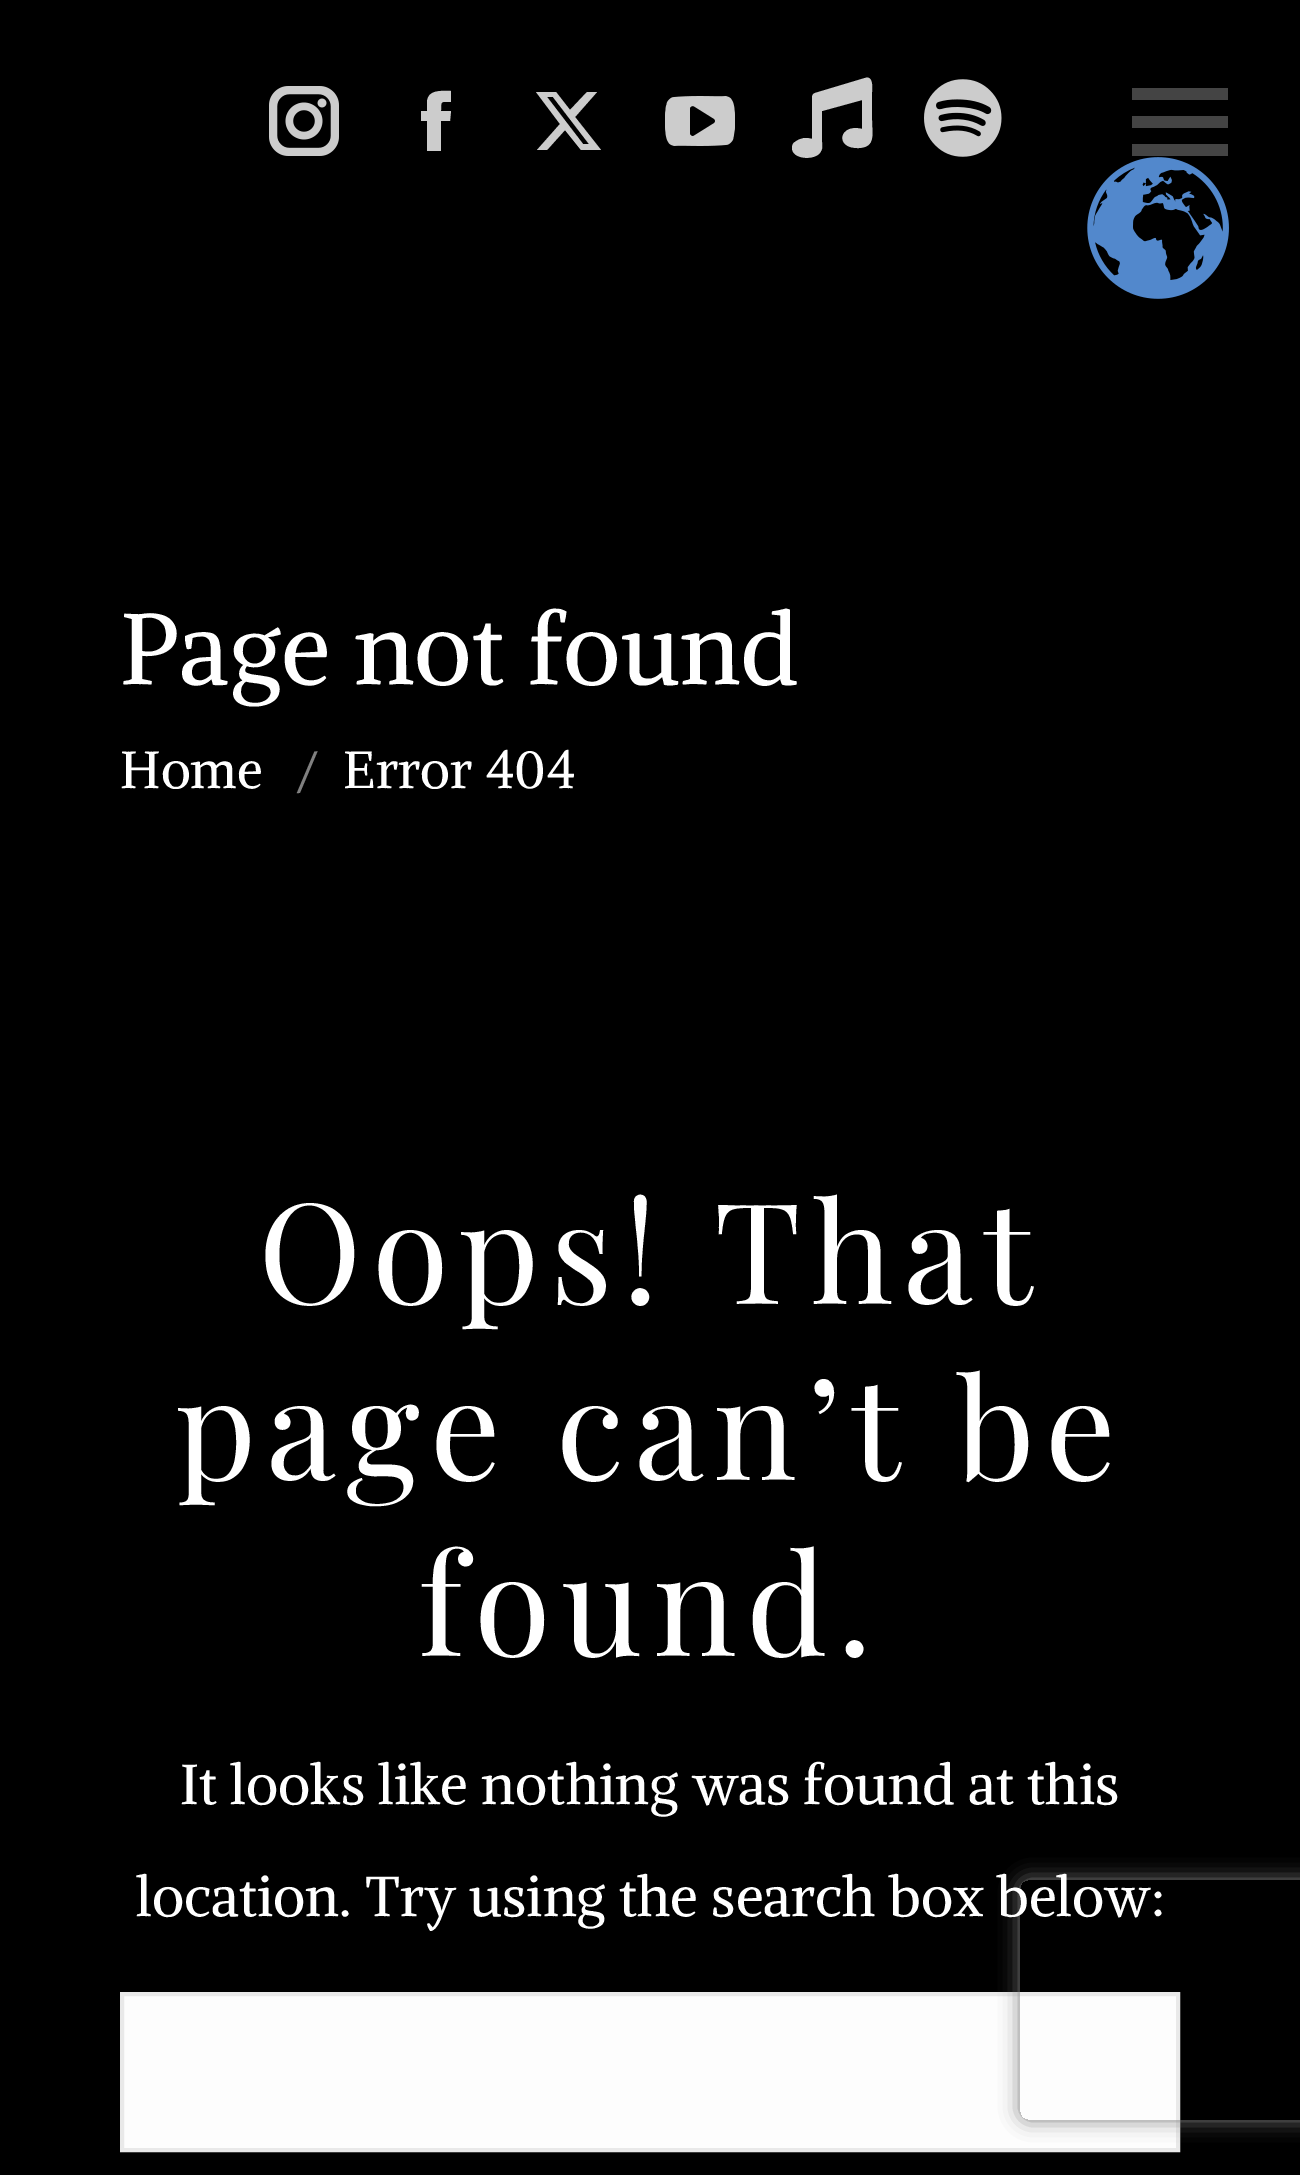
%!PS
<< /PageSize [1300 2175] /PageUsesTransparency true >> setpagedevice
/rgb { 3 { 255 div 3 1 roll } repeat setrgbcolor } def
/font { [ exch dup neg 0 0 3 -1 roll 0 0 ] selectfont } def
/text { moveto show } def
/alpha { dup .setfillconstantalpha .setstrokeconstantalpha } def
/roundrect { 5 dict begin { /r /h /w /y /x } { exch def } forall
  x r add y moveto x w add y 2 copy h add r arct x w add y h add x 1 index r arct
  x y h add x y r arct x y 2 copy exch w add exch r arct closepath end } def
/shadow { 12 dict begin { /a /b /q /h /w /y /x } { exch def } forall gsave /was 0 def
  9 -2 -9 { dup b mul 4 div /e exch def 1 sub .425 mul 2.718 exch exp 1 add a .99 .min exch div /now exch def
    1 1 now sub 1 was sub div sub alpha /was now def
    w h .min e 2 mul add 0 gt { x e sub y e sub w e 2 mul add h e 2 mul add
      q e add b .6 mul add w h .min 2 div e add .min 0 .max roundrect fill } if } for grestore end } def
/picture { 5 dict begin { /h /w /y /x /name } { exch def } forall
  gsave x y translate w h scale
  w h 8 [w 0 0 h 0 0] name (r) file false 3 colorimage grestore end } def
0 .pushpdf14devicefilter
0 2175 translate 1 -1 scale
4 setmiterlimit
0 0 0 rgb
0 0 1300 2175 rectfill
(img_01.rgb) 1087 157 142 142 picture
(img_02.rgb) 269 86 70 70 picture
204 204 204 rgb
427 103 moveto 0 -14 15 -12 24 -12 rcurveto 0 11 rlineto -10 0 -10 -2 -10 9 rcurveto 10 0 rlineto -1 10 rlineto -9 0 rlineto 0 30 rlineto -14 0 rlineto 0 -30 rlineto -6 0 rlineto 0 -10 rlineto 6 0 rlineto closepath fill
587 92 moveto 10 0 rlineto -22 25 rlineto 26 33 rlineto -20 0 rlineto -16 -20 rlineto -18 20 rlineto -10 0 rlineto 23 -26 rlineto -24 -32 rlineto 20 0 rlineto 14 18 rlineto closepath 583 144 moveto 6 0 rlineto -36 -47 rlineto -6 0 rlineto closepath fill
(img_03.rgb) 665 96 70 50 picture
865 78 moveto 9 -3 7 12 7 14 rcurveto 0 28 rlineto 0 14 4 27 -13 28 rcurveto -25 1 -20 -25 3 -19 rcurveto 0 -29 rlineto -40 11 rlineto 0 31 rlineto 0 2 1 6 -1 9 rcurveto -4 10 -29 9 -29 -3 rcurveto 0 -3 1 -5 3 -6 rcurveto 5 -4 11 -5 17 -3 rcurveto 0 -41 rlineto 0 -3 1 -4 3 -5 rcurveto closepath fill
(img_04.rgb) 924 79 78 78 picture
68 68 68 rgb
1132 88 96 12 rectfill
1132 116 96 12 rectfill
1132 144 96 12 rectfill
253 253 253 rgb
122 1994 moveto 1056 0 rlineto 0 156 rlineto -1056 0 rlineto closepath gsave fill grestore
233 233 233 rgb
4 setlinewidth
stroke
gsave
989 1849 moveto 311 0 rlineto 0 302 rlineto -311 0 rlineto closepath 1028 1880 moveto 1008 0 rlineto 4.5 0 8 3.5 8 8 rcurveto 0 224 rlineto 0 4.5 -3.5 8 -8 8 rcurveto -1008 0 rlineto -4.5 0 -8 -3.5 -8 -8 rcurveto 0 -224 rlineto 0 -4.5 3.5 -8 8 -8 rcurveto closepath eoclip newpath
128 128 128 rgb
1020 1880 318 240 8 10 1 shadow
grestore
/Alike-Regular 100 font
255 255 255 rgb
(Page not found) 120 684 text
/Alike-Regular 52 font
(Home) 120 788 text
128 128 128 rgb
(/) 295 788 text
255 255 255 rgb
(Error 404) 343 788 text
/PlayfairDisplay-Regular 140 font
258 1304 moveto 10 0 (Oops! That) ashow
175 1480 moveto 10 0 (page can’t be) ashow
418 1656 moveto 10 0 (found.) ashow
/Alike-Regular 56 font
(It looks like nothing was found at this) 180 1804 text
(location. Try using the search box below:) 136 1916 text
.poppdf14devicefilter showpage
